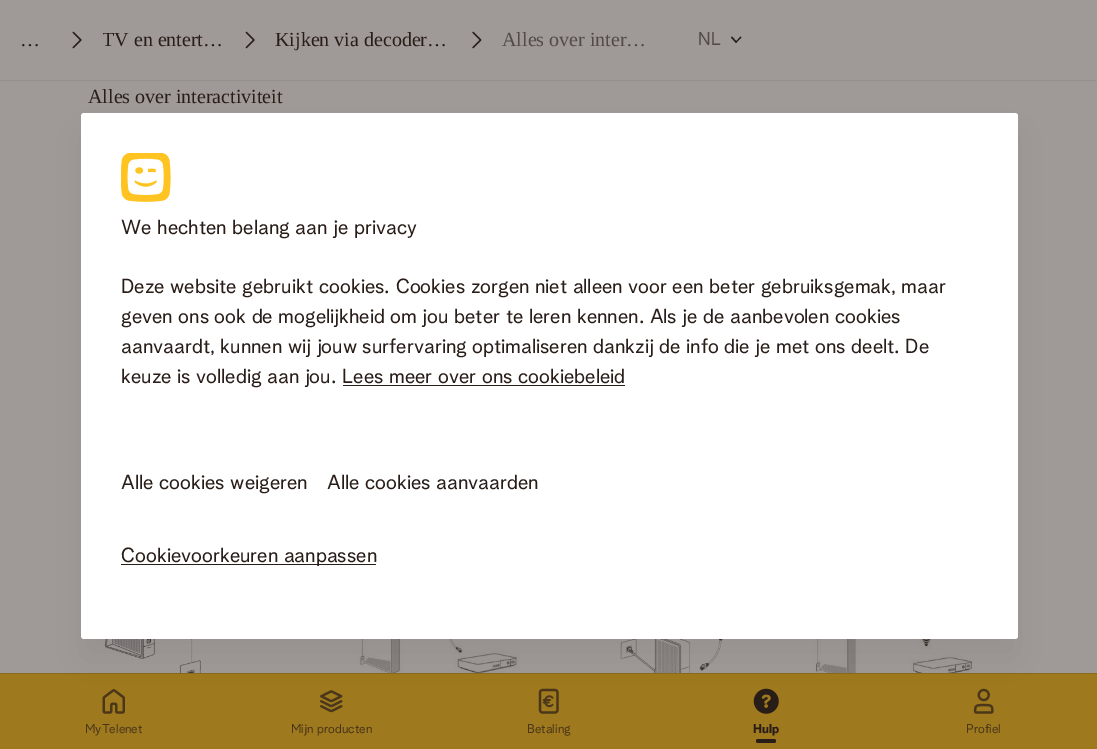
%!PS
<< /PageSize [1097 749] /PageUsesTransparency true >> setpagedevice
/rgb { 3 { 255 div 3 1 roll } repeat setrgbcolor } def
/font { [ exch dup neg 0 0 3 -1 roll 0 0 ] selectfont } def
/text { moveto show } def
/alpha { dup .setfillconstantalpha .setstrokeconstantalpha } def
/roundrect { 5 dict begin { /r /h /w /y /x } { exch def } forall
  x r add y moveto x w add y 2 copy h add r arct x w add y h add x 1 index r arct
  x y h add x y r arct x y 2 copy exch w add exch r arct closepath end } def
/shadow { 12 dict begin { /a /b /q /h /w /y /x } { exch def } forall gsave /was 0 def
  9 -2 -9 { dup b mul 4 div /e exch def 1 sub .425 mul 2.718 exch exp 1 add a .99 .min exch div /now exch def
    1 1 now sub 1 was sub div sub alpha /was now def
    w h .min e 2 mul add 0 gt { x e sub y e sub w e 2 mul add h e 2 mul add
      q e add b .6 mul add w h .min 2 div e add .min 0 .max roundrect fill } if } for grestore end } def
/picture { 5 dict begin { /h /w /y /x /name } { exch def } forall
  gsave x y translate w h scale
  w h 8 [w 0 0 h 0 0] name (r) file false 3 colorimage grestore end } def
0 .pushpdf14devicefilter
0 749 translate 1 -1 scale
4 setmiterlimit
159 153 151 rgb
0 0 1097 749 rectfill
(img_01.rgb) 72 31 10 18 picture
(img_02.rgb) 245 31 10 18 picture
(img_03.rgb) 472 31 10 18 picture
41 29 24 rgb
740.5 36.5 moveto 1 1 rlineto -5.5 5.5 rlineto -0.5 -1 rlineto closepath fill
732 36.5 moveto 5 5.5 rlineto -1 1 rlineto -5 -5.5 rlineto closepath fill
149 143 141 rgb
0 80 1097 1 rectfill
(img_04.rgb) 105 639 179 34 picture
(img_05.rgb) 359 639 161 34 picture
(img_06.rgb) 565 639 197 34 picture
(img_07.rgb) 813 639 160 34 picture
159 121 29 rgb
0 674 1097 75 rectfill
140 106 28 rgb
0 673 1097 1 rectfill
(img_08.rgb) 102 689 23 25 picture
(img_09.rgb) 320 690 23 23 picture
(img_10.rgb) 538 688 21 26 picture
(img_11.rgb) 753 688 26 26 picture
41 29 24 rgb
756 739 20 4 2 roundrect fill
(img_12.rgb) 973 688 21 26 picture
81 133 937 526 3 20 0.08 shadow
255 255 255 rgb
81 113 937 526 3 roundrect fill
(img_13.rgb) 121 153 50 49 picture
41 29 24 rgb
343 385 282 1 rectfill
121 564 255 1 rectfill
/LiberationSerif-Regular 20 font
(…) 20 46 text
gsave
103 25 122 30 rectclip
(TV en entert…) 102 46 text
grestore
(Kijken via decoder…) 275 46 text
83 74 70 rgb
(Alles over inter…) 502 46 text
/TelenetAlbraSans-Regular 18 font
(NL) 698 45 text
/LiberationSerif-Regular 20 font
41 29 24 rgb
(Alles over interactiviteit) 88 103 text
/TelenetAlbraSans-Regular 12.5 font
74 55 26 rgb
(MyTelenet) 85 733 text
(Mijn producten) 291 733 text
(Betaling) 527 733 text
/TelenetAlbraSans-Bold 12.5 font
41 29 24 rgb
(Hulp) 753 733 text
/TelenetAlbraSans-Regular 12.5 font
74 55 26 rgb
(Profiel) 966 733 text
/TelenetAlbraSans-Regular 20 font
41 29 24 rgb
(We hechten belang aan je privacy) 121 234 text
(Deze website gebruikt cookies. Cookies zorgen niet alleen voor een beter gebruiksgemak, maar) 121 293 text
(geven ons ook de mogelijkheid om jou beter te leren kennen. Als je de aanbevolen cookies) 121 323 text
(aanvaardt, kunnen wij jouw surfervaring optimaliseren dankzij de info die je met ons deelt. De) 121 353 text
(keuze is volledig aan jou.) 121 383 text
(Lees meer over ons cookiebeleid) 342 383 text
(Alle cookies weigeren) 121 489 text
(Alle cookies aanvaarden) 327 489 text
(Cookievoorkeuren aanpassen) 121 562 text
.poppdf14devicefilter showpage
